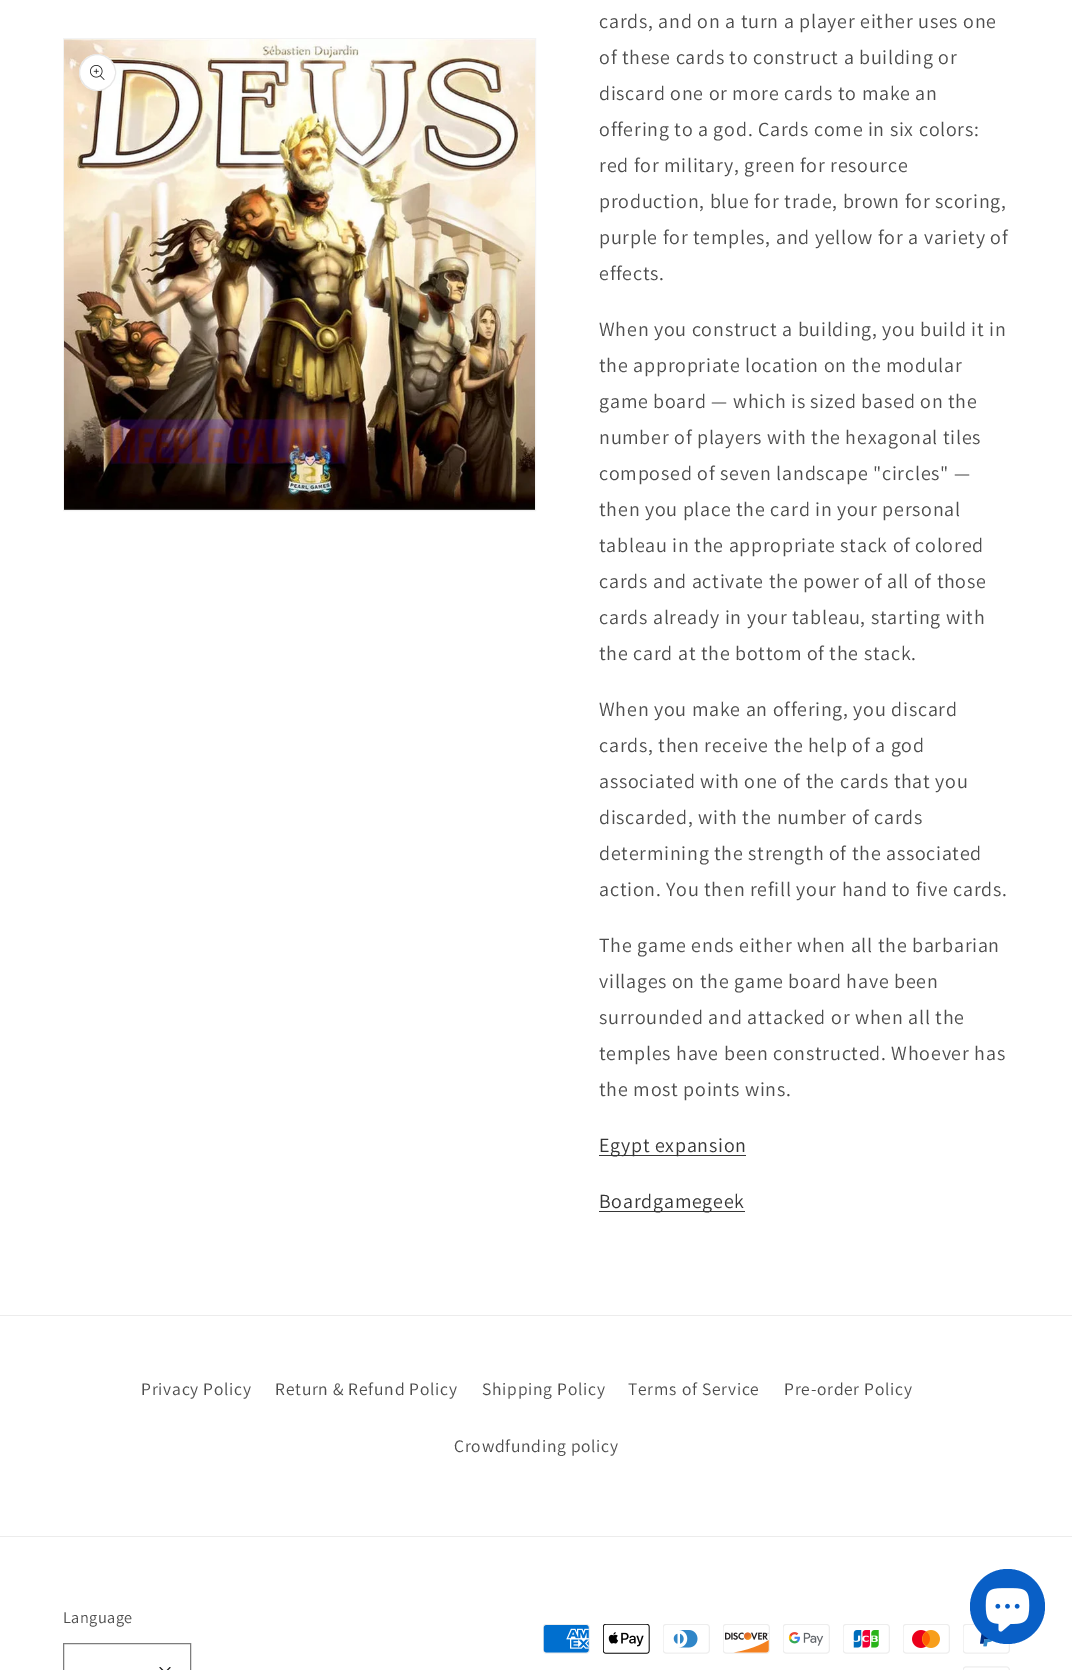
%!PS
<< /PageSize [1072 1670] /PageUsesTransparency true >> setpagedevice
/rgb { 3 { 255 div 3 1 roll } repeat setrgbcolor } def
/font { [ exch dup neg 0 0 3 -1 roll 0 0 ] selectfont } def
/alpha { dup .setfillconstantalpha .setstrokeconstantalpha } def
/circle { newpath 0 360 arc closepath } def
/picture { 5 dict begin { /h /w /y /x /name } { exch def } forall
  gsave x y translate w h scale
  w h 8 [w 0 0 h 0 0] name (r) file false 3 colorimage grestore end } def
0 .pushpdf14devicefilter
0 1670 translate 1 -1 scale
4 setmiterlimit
255 255 255 rgb
0 0 1072 1670 rectfill
243 243 243 rgb
63.5 38.5 472 472 rectstroke
(img_01.rgb) 64 39 471 471 picture
255 255 255 rgb
97.5 72.5 18.5 circle fill
0.1 alpha
18 18 18 rgb
97.5 72.5 18 circle stroke
1 alpha
(img_02.rgb) 90 65 15 15 picture
54 54 54 rgb
599 1155 147 1 rectfill
599 1211 146 1 rectfill
236 236 236 rgb
0 1315 1072 1 rectfill
0 1536 1072 1 rectfill
(img_03.rgb) 159 1667 12 3 picture
125 125 125 rgb
63.5 1643.5 127 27 rectstroke
(img_04.rgb) 543 1624 47 30 picture
(img_05.rgb) 603 1624 47 30 picture
(img_06.rgb) 663 1624 47 30 picture
(img_07.rgb) 723 1624 47 30 picture
(img_08.rgb) 783 1624 47 30 picture
(img_09.rgb) 843 1624 47 30 picture
(img_10.rgb) 903 1624 47 30 picture
(img_11.rgb) 963 1624 47 30 picture
(img_12.rgb) 963 1666 47 4 picture
9 95 198 rgb
1007.5 1606.5 37.5 circle fill
(img_13.rgb) 985 1588 45 44 picture
/Assistant-Regular 20 font
77 77 77 rgb
599 28 moveto 0.75 0 (cards, and on a turn a player either uses one) ashow
599 64 moveto 0.75 0 (of these cards to construct a building or) ashow
599 100 moveto 0.75 0 (discard one or more cards to make an) ashow
599 136 moveto 0.75 0 (offering to a god. Cards come in six colors:) ashow
599 172 moveto 0.75 0 (red for military, green for resource) ashow
599 208 moveto 0.75 0 (production, blue for trade, brown for scoring,) ashow
599 244 moveto 0.75 0 (purple for temples, and yellow for a variety of) ashow
599 280 moveto 0.75 0 (effects.) ashow
599 336 moveto 0.75 0 (When you construct a building, you build it in) ashow
599 372 moveto 0.75 0 (the appropriate location on the modular) ashow
599 408 moveto 0.75 0 (game board — which is sized based on the) ashow
599 444 moveto 0.75 0 (number of players with the hexagonal tiles) ashow
599 480 moveto 0.75 0 (composed of seven landscape "circles" —) ashow
599 516 moveto 0.75 0 (then you place the card in your personal) ashow
599 552 moveto 0.75 0 (tableau in the appropriate stack of colored) ashow
599 588 moveto 0.75 0 (cards and activate the power of all of those) ashow
599 624 moveto 0.75 0 (cards already in your tableau, starting with) ashow
599 660 moveto 0.75 0 (the card at the bottom of the stack.) ashow
599 716 moveto 0.75 0 (When you make an offering, you discard) ashow
599 752 moveto 0.75 0 (cards, then receive the help of a god) ashow
599 788 moveto 0.75 0 (associated with one of the cards that you) ashow
599 824 moveto 0.75 0 (discarded, with the number of cards) ashow
599 860 moveto 0.75 0 (determining the strength of the associated) ashow
599 896 moveto 0.75 0 (action. You then refill your hand to five cards.) ashow
599 952 moveto 0.75 0 (The game ends either when all the barbarian) ashow
599 988 moveto 0.75 0 (villages on the game board have been) ashow
599 1024 moveto 0.75 0 (surrounded and attacked or when all the) ashow
599 1060 moveto 0.75 0 (temples have been constructed. Whoever has) ashow
599 1096 moveto 0.75 0 (the most points wins.) ashow
53 53 53 rgb
599 1152 moveto 0.75 0 (Egypt expansion) ashow
599 1208 moveto 0.75 0 (Boardgamegeek) ashow
/Assistant-Regular 17.5 font
77 77 77 rgb
141 1395 moveto 0.75 0 (Privacy Policy) ashow
275 1395 moveto 0.75 0 (Return & Refund Policy) ashow
482 1395 moveto 0.75 0 (Shipping Policy) ashow
628 1395 moveto 0.75 0 (Terms of Service) ashow
784 1395 moveto 0.75 0 (Pre-order Policy) ashow
454 1452 moveto 0.75 0 (Crowdfunding policy) ashow
/Assistant-Regular 16.25 font
63 1623 moveto 0.5 0 (Language) ashow
.poppdf14devicefilter showpage
